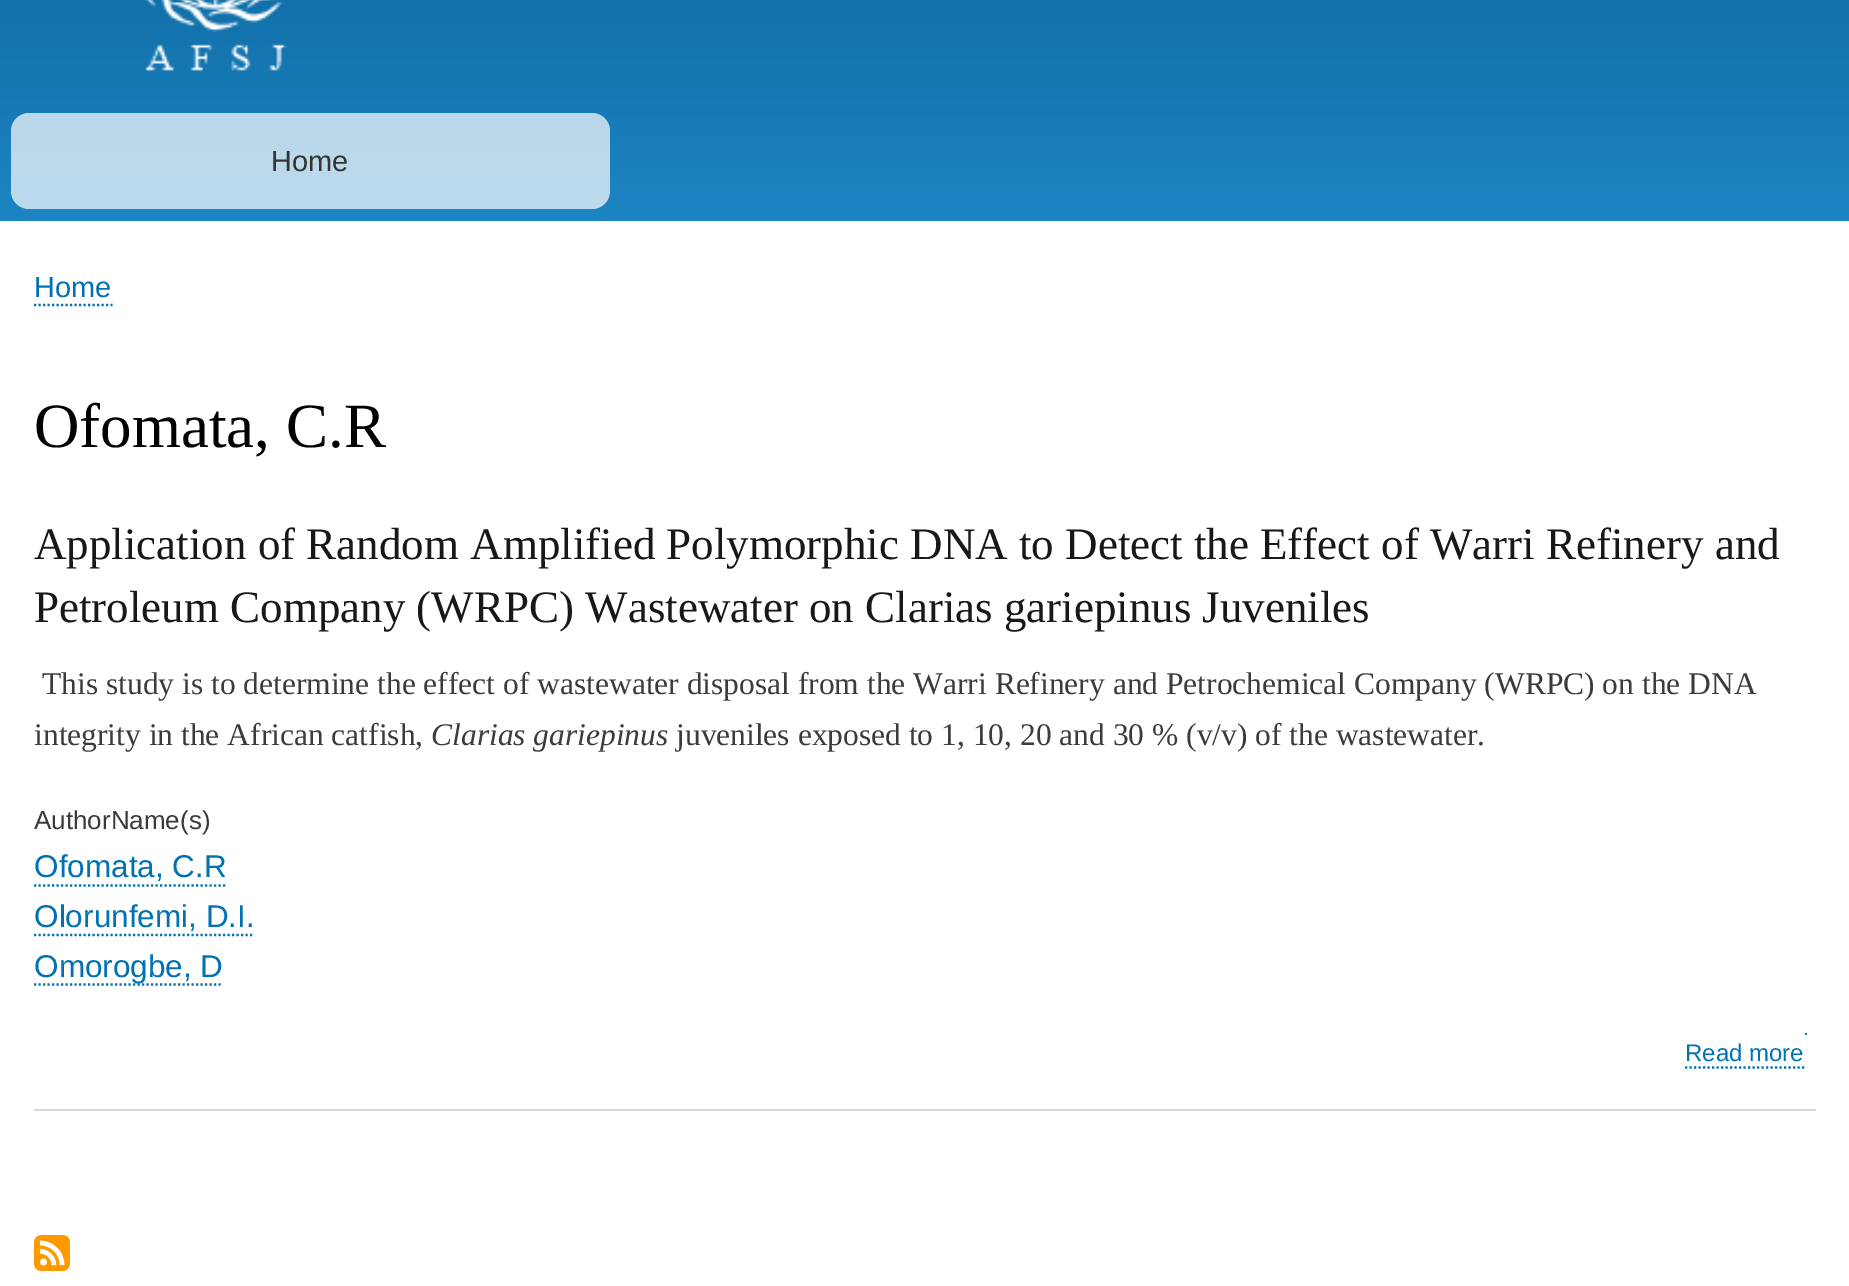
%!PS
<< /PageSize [1849 1286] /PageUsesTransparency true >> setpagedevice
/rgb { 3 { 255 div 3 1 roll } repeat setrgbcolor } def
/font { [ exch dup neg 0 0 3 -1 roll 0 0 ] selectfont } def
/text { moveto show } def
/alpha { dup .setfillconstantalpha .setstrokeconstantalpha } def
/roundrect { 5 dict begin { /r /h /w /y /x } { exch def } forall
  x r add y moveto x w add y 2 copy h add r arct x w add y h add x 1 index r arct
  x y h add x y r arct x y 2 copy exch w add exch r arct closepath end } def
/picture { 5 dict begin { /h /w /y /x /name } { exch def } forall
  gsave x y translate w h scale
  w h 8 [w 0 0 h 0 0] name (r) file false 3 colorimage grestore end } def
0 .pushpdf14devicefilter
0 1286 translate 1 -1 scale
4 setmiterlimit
255 255 255 rgb
0 0 1849 1286 rectfill
gsave 0 0 moveto 1849 0 rlineto 0 221 rlineto -1849 0 rlineto closepath clip newpath
<< /ShadingType 2 /ColorSpace /DeviceRGB /Coords [925 -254 925 221] /Extend [true true] /Function << /FunctionType 2 /Domain [0 1] /C0 [0.02 0.353 0.557] /C1 [0.114 0.518 0.765] /N 1 >> >> shfill grestore
(img_01.rgb) 145 0 142 71 picture
0.7 alpha
11 113 599 96 18 roundrect fill
1 alpha
0 113 179 rgb
2.2 setlinewidth
[2.25 2.25] 0 setdash
34 305 moveto 78.5 0 rlineto stroke
211 215 217 rgb
34 1109 1782 2 rectfill
0 113 179 rgb
34 885.5 moveto 193 0 rlineto stroke
34 935 moveto 220 0 rlineto stroke
34 984.5 moveto 189 0 rlineto stroke
1685 1067.5 moveto 119.5 0 rlineto stroke
1805 1033 2 2 rectfill
(img_02.rgb) 34 1235 36 36 picture
/LiberationSans-Regular 29 font
51 51 51 rgb
(Home) 271 171 text
0 113 179 rgb
(Home) 34 297 text
/LiberationSerif-Regular 63 font
0 0 0 rgb
(Ofomata, C.R) 34 447 text
/LiberationSerif-Regular 45 font
24 24 24 rgb
(Application of Random Amplified Polymorphic DNA to Detect the Effect of Warri Refinery and) 34 559 text
(Petroleum Company \(WRPC\) Wastewater on Clarias gariepinus Juveniles) 34 622 text
/LiberationSerif-Regular 31.5 font
59 59 59 rgb
(This study is to determine the effect of wastewater disposal from the Warri Refinery and Petrochemical Company \(WRPC\) on the DNA) 42 694 text
(integrity in the African catfish,) 34 745 text
/LiberationSerif-Italic 31.5 font
(Clarias gariepinus) 431 745 text
/LiberationSerif-Regular 31.5 font
(juveniles exposed to 1, 10, 20 and 30 % \(v/v\) of the wastewater.) 676 745 text
/LiberationSans-Regular 26 font
(AuthorName\(s\)) 34 829 text
/LiberationSans-Regular 31.5 font
0 113 179 rgb
(Ofomata, C.R) 34 877 text
(Olorunfemi, D.I.) 34 927 text
(Omorogbe, D) 34 977 text
/LiberationSans-Regular 24 font
(Read more) 1685 1061 text
.poppdf14devicefilter showpage
